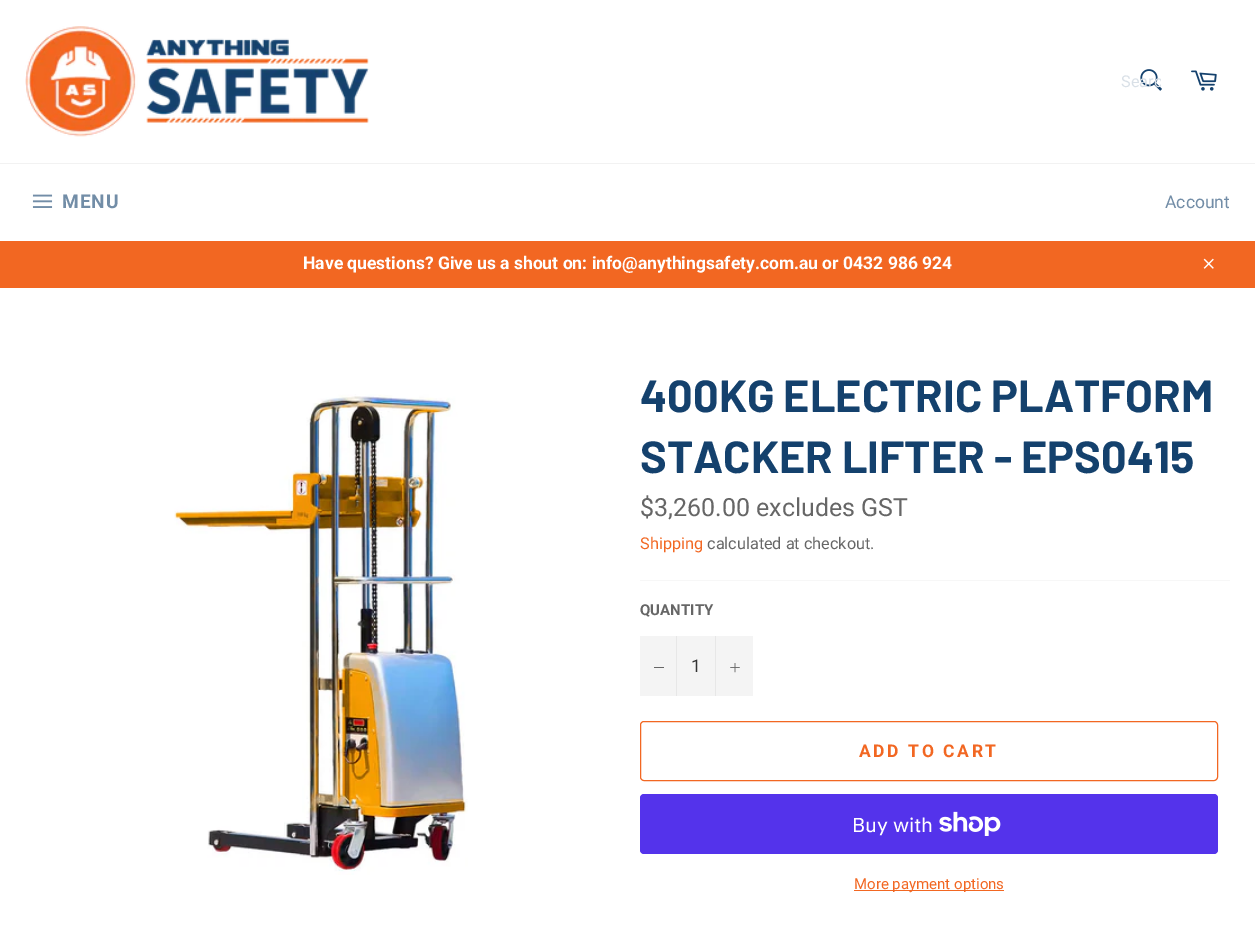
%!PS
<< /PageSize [1255 932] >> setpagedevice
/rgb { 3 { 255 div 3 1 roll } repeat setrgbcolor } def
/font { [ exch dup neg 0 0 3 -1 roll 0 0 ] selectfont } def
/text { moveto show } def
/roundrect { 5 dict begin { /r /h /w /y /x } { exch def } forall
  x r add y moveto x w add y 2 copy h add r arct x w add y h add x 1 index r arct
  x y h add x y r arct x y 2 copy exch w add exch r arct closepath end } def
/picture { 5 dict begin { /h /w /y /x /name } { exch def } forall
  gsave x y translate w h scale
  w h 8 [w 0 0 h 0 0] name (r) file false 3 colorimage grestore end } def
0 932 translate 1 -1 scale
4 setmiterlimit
255 255 255 rgb
0 0 1255 932 rectfill
(img_01.rgb) 25 26 344 111 picture
(img_02.rgb) 1140 69 22 22 picture
(img_03.rgb) 1191 70 26 21 picture
242 242 242 rgb
0 163 1255 1 rectfill
(img_04.rgb) 32 194 21 14 picture
242 103 34 rgb
0 241 1255 47 rectfill
(img_05.rgb) 1203 258 11 11 picture
(img_06.rgb) 174 394 294 481 picture
247 247 247 rgb
640 580 590 1 rectfill
244 244 244 rgb
640 636 113 60 rectfill
231 231 231 rgb
676 636 1 60 rectfill
102 102 102 rgb
654 667 10 1 rectfill
231 231 231 rgb
715 636 1 60 rectfill
(img_07.rgb) 730 663 10 10 picture
242 103 34 rgb
640.5 721.5 577 59 3.5 roundrect stroke
84 51 235 rgb
640 794 578 60 4 roundrect fill
(img_08.rgb) 939 811 62 25 picture
242 103 34 rgb
854 890 150 1 rectfill
gsave
1121 73 40 18 rectclip
/Roboto-Regular 16.25 font
217 224 231 rgb
(Searc) 1121 87 text
grestore
/Roboto-Bold 19 font
114 141 167 rgb
62 208 moveto 1 0 (MENU) ashow
/Roboto-Regular 17.5 font
(Account) 1165 208 text
/Roboto-Bold 17.5 font
255 255 255 rgb
(Have questions? Give us a shout on: info@anythingsafety.com.au or 0432 986 924) 303 269 text
/Barlow-Bold 45 font
20 65 109 rgb
(400KG ELECTRIC PLATFORM) 640 412 text
(STACKER LIFTER - EPS0415) 640 473 text
/Roboto-Regular 25 font
102 102 102 rgb
($3,260.00 excludes GST) 640 516 text
/Roboto-Regular 16.25 font
242 103 34 rgb
(Shipping) 640 549 text
102 102 102 rgb
(calculated at checkout.) 707 549 text
/Roboto-Bold 15 font
(QUANTITY) 640 615 text
/Roboto-Regular 17.5 font
51 51 51 rgb
(1) 691 672 text
/Roboto-Bold 17.5 font
242 103 34 rgb
859 757 moveto 2.6 0 (ADD TO CART) ashow
/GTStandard-Regular 20 font
255 255 255 rgb
(Buy with) 852 832 text
/Roboto-Regular 15 font
242 103 34 rgb
(More payment options) 854 889 text
showpage
